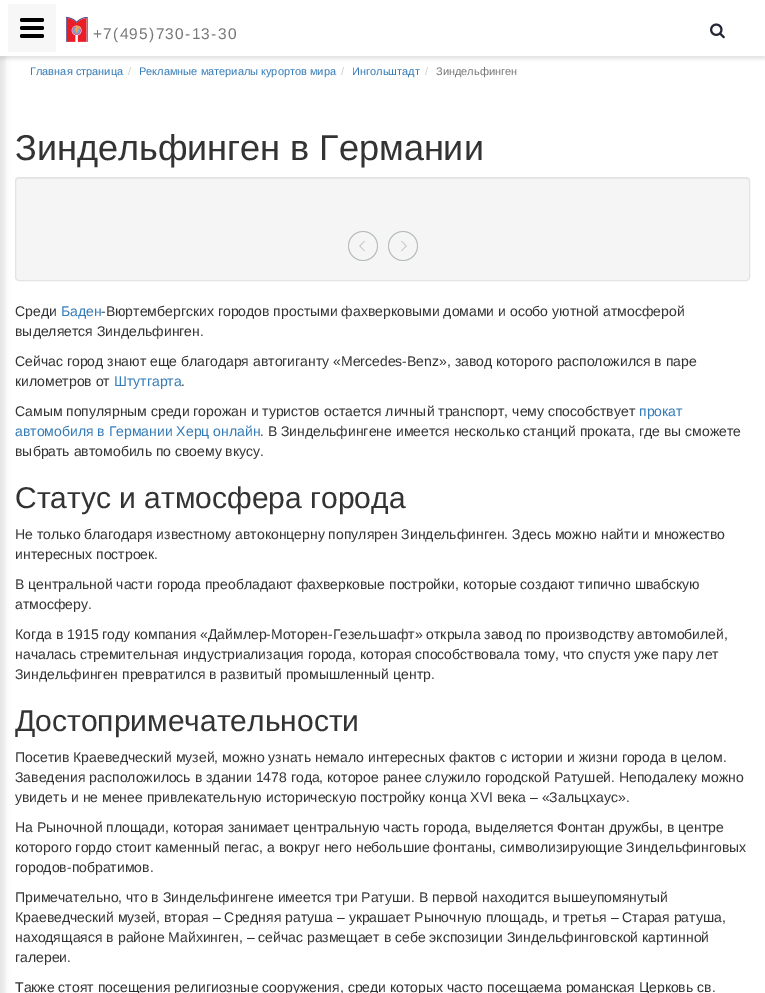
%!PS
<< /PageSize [765 993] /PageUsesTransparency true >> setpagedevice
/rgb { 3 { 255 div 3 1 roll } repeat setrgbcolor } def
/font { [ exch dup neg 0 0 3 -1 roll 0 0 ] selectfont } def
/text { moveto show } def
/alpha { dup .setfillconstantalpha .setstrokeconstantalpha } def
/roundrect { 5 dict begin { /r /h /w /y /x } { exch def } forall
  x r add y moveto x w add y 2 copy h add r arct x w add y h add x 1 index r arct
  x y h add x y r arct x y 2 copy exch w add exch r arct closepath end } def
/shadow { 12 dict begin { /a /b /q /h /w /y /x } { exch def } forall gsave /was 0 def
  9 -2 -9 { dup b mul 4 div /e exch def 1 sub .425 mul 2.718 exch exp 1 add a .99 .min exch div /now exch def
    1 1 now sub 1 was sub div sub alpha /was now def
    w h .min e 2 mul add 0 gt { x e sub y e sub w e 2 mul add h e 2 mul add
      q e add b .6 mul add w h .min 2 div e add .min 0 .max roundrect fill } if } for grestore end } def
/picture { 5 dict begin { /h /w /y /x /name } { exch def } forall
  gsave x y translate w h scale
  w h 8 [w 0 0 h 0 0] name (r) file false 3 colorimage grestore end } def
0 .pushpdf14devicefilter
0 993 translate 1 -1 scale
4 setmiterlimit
255 255 255 rgb
0 0 765 993 rectfill
0 0 0 rgb
-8 -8 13 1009 0 2.5 0.1 shadow
0 3 765 56 0 1.5 0.1 shadow
255 255 255 rgb
0 0 765 56 rectfill
247 247 247 rgb
8 4 48 48 rectfill
0 0 0 rgb
20 26 24 4 2 roundrect fill
20 18 24 4 2 roundrect fill
20 34 24 4 2 roundrect fill
(img_01.rgb) 66 17 22 25 picture
(img_02.rgb) 710 23 15 16 picture
245 245 245 rgb
15 177 735 104 4 roundrect fill
233 233 233 rgb
19 179 moveto 727 0 rlineto 2 0 3 1 3 3 rcurveto 0 -2 -1 -4 -3 -4 rcurveto -727 0 rlineto -2 0 -3 2 -3 4 rcurveto 0 -2 1 -3 3 -3 rcurveto closepath fill
227 227 227 rgb
15.5 177.5 734 103 3.5 roundrect stroke
(img_03.rgb) 348 231 30 30 picture
(img_04.rgb) 388 231 30 30 picture
/LiberationSans-Regular 15.5 font
119 119 119 rgb
93 39 moveto 1.25 0 (+7\(495\)730-13-30) ashow
/LiberationSans-Regular 11 font
51 122 183 rgb
(Главная страница) 30 75 text
204 204 204 rgb
(/) 128 75 text
51 122 183 rgb
(Рекламные материалы курортов мира) 139 75 text
204 204 204 rgb
(/) 341 75 text
51 122 183 rgb
(Ингольштадт) 352 75 text
204 204 204 rgb
(/) 425 75 text
119 119 119 rgb
(Зиндельфинген) 436 75 text
/LiberationSans-Regular 36 font
51 51 51 rgb
(Зиндельфинген в Германии) 15 160 text
/LiberationSans-Regular 14 font
(Среди) 15 316 text
51 122 183 rgb
(Баден) 61 316 text
51 51 51 rgb
(-Вюртембергских городов простыми фахверковыми домами и особо уютной атмосферой) 101 316 text
(выделяется Зиндельфинген.) 15 336 text
(Сейчас город знают еще благодаря автогиганту «Mercedes-Benz», завод которого расположился в паре) 15 366 text
(километров от) 15 386 text
51 122 183 rgb
(Штутгарта) 114 386 text
51 51 51 rgb
(.) 181 386 text
(Самым популярным среди горожан и туристов остается личный транспорт, чему способствует) 15 416 text
51 122 183 rgb
(прокат) 639 416 text
(автомобиля в Германии Херц онлайн) 15 436 text
51 51 51 rgb
(. В Зиндельфингене имеется несколько станций проката, где вы сможете) 260 436 text
(выбрать автомобиль по своему вкусу.) 15 456 text
/LiberationSans-Regular 30 font
(Статус и атмосфера города) 15 508 text
/LiberationSans-Regular 14 font
(Не только благодаря известному автоконцерну популярен Зиндельфинген. Здесь можно найти и множество) 15 539 text
(интересных построек.) 15 559 text
(В центральной части города преобладают фахверковые постройки, которые создают типично швабскую) 15 589 text
(атмосферу.) 15 609 text
(Когда в 1915 году компания «Даймлер-Моторен-Гезельшафт» открыла завод по производству автомобилей,) 15 639 text
(началась стремительная индустриализация города, которая способствовала тому, что спустя уже пару лет) 15 659 text
(Зиндельфинген превратился в развитый промышленный центр.) 15 679 text
/LiberationSans-Regular 30 font
(Достопримечательности) 15 731 text
/LiberationSans-Regular 14 font
(Посетив Краеведческий музей, можно узнать немало интересных фактов с истории и жизни города в целом.) 15 762 text
(Заведения расположилось в здании 1478 года, которое ранее служило городской Ратушей. Неподалеку можно) 15 782 text
(увидеть и не менее привлекательную историческую постройку конца ХVI века – «Зальцхаус».) 15 802 text
(На Рыночной площади, которая занимает центральную часть города, выделяется Фонтан дружбы, в центре) 15 832 text
(которого гордо стоит каменный пегас, а вокруг него небольшие фонтаны, символизирующие Зиндельфинговых) 15 852 text
(городов-побратимов.) 15 872 text
(Примечательно, что в Зиндельфингене имеется три Ратуши. В первой находится вышеупомянутый) 15 902 text
(Краеведческий музей, вторая – Средняя ратуша – украшает Рыночную площадь, и третья – Старая ратуша,) 15 922 text
(находящаяся в районе Майхинген, – сейчас размещает в себе экспозиции Зиндельфинговской картинной) 15 942 text
(галереи.) 15 962 text
(Также стоят посещения религиозные сооружения, среди которых часто посещаема романская Церковь св.) 15 992 text
.poppdf14devicefilter showpage
